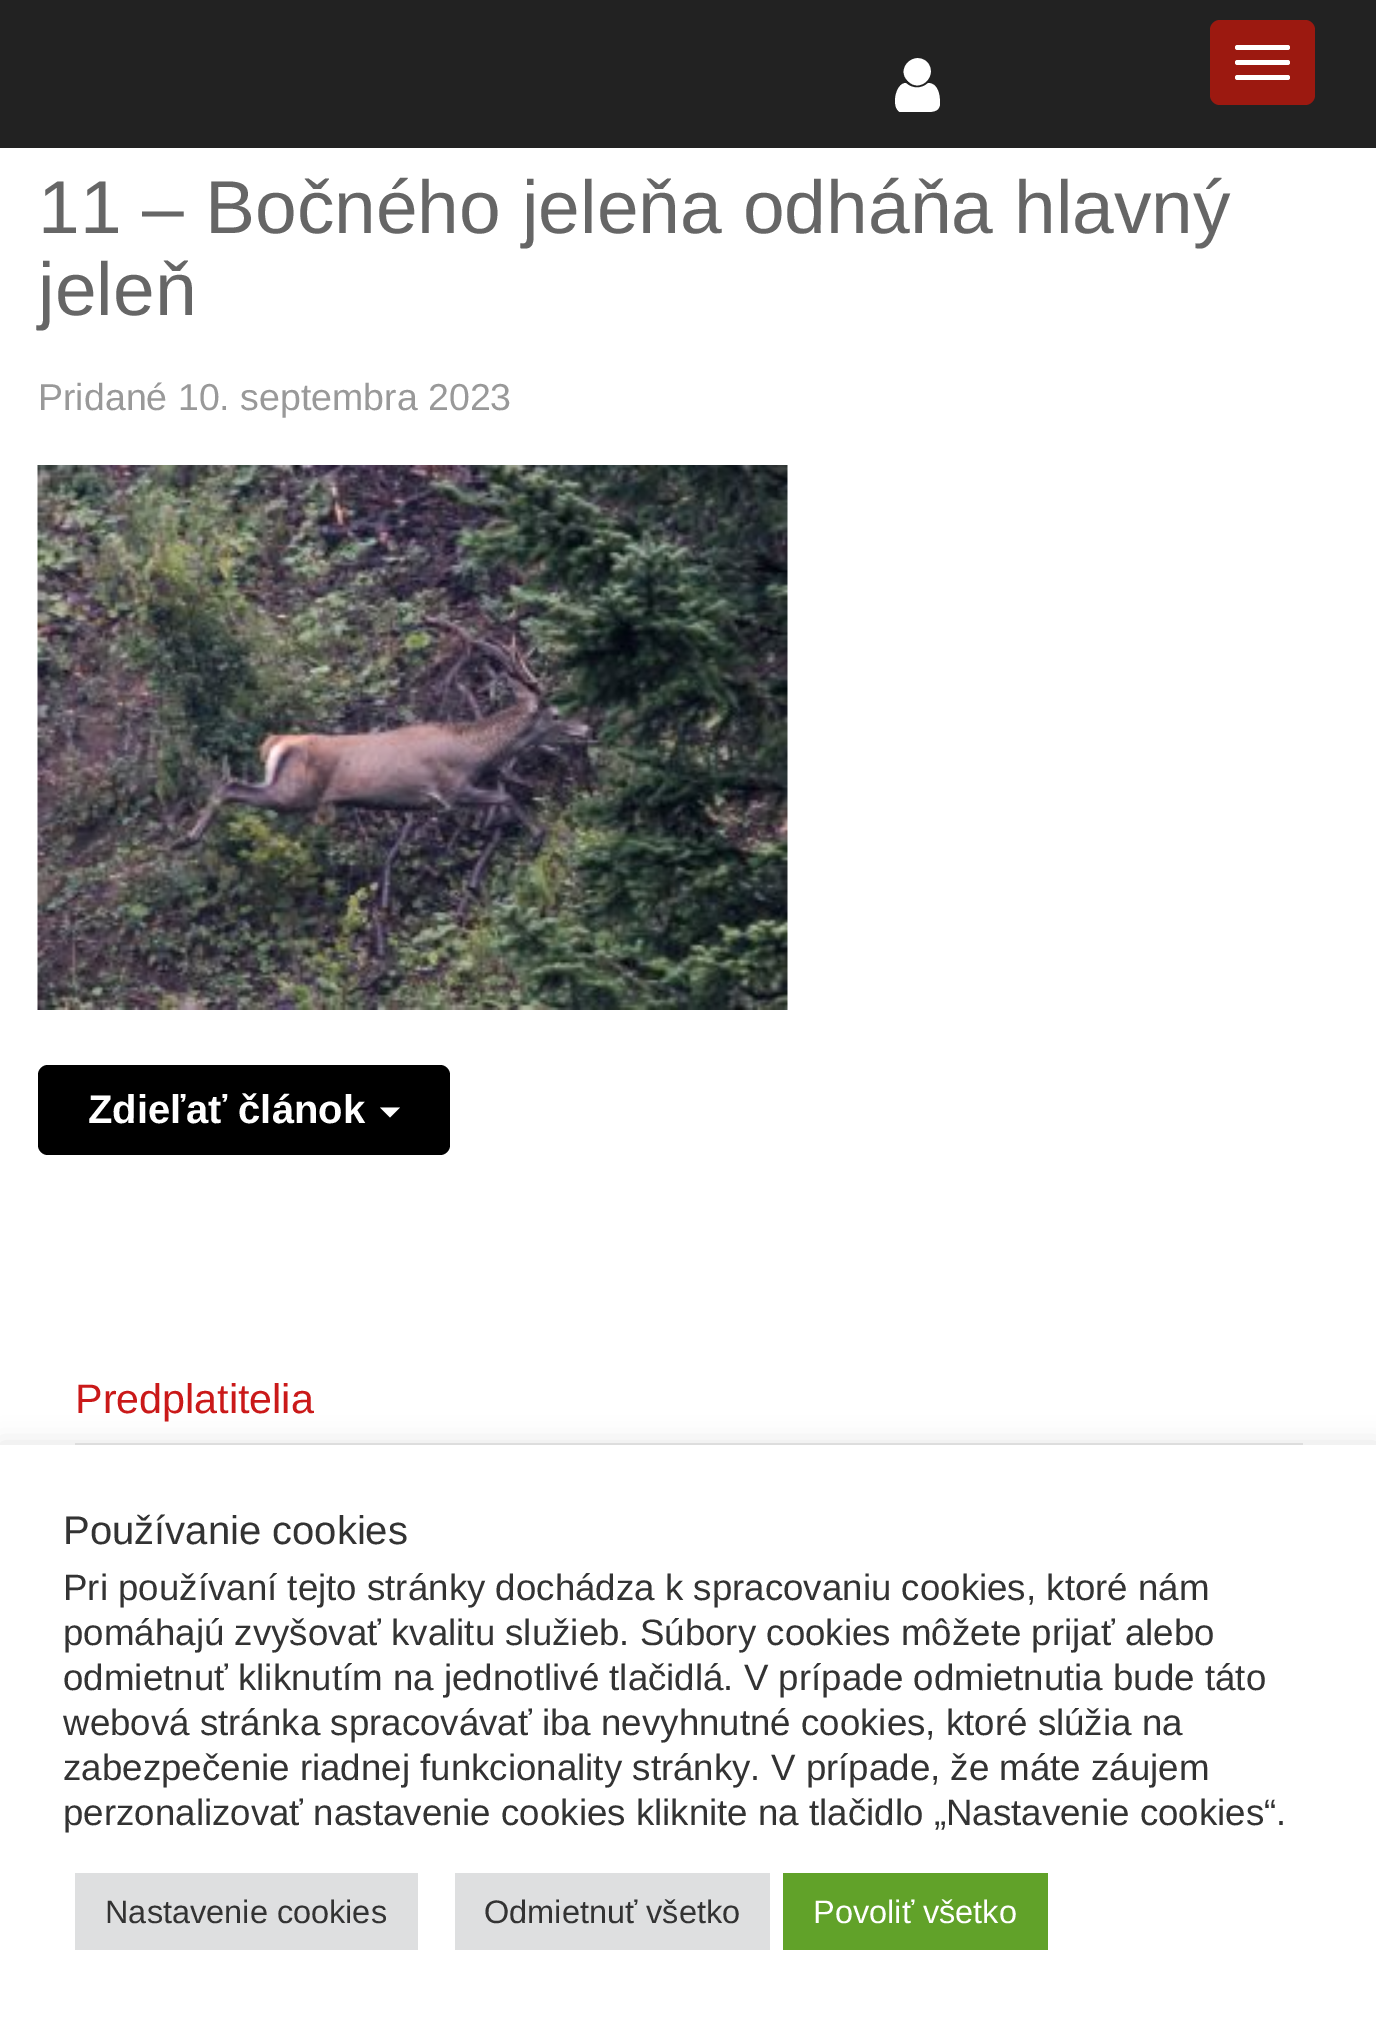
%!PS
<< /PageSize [1376 2024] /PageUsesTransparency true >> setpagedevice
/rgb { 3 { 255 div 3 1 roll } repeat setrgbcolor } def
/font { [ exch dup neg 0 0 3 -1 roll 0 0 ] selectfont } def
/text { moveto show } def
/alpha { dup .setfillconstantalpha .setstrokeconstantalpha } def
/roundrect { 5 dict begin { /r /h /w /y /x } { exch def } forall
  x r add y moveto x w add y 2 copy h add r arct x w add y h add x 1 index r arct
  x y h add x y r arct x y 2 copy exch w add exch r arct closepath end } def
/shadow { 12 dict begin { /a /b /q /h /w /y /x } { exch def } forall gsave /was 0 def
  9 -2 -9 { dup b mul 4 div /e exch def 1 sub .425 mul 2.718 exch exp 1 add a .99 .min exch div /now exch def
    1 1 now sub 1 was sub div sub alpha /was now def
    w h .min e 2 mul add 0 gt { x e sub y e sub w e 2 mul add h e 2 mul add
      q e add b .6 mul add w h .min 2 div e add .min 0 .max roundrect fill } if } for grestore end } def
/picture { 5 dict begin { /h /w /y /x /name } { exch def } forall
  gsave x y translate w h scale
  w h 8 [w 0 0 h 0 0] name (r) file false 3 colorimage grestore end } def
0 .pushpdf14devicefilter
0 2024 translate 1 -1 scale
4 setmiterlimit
255 255 255 rgb
0 0 1376 2024 rectfill
34 34 34 rgb
0 0 1376 148 rectfill
255 255 255 rgb
940 103 moveto 0 8 -6 9 -13 9 rcurveto -27 0 rlineto -9 -4 -5 -29 6 -29 rcurveto 6 6 16 6 22 0 rcurveto 10 0 12 12 12 20 rcurveto closepath 927 62 moveto 12 13 -7 32 -19 19 rcurveto -13 -12 6 -31 19 -19 rcurveto closepath fill
156 25 16 rgb
1210 20 105 85 10 roundrect fill
255 255 255 rgb
1235 45 55 5 2.5 roundrect fill
1235 60 55 5 2.5 roundrect fill
1235 75 55 5 2.5 roundrect fill
(img_01.rgb) 37 465 751 545 picture
0 0 0 rgb
38 1065 412 90 10 roundrect fill
255 255 255 rgb
380 1107.5 moveto 20 0 rlineto -10 10 rlineto closepath fill
230 230 230 rgb
75 1443 1228 2 rectfill
172 171 171 rgb
0 1443 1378 580 0 12.5 0.3 shadow
255 255 255 rgb
0 1445 1376 579 rectfill
222 223 224 rgb
75 1873 343 77 rectfill
455 1873 315 77 rectfill
97 162 41 rgb
783 1873 265 77 rectfill
/LiberationSans-Regular 75 font
102 102 102 rgb
(11 – Bočného jeleňa odháňa hlavný) 38 233 text
(jeleň) 38 315 text
/LiberationSans-Regular 37.5 font
153 153 153 rgb
(Pridané 10. septembra 2023) 38 410 text
/LiberationSans-Bold 40 font
255 255 255 rgb
(Zdieľať článok) 88 1123 text
/LiberationSans-Regular 41.25 font
202 25 25 rgb
(Predplatitelia) 75 1413 text
/LiberationSans-Regular 40 font
51 51 51 rgb
(Používanie cookies) 63 1544 text
/LiberationSans-Regular 36.7 font
(Pri používaní tejto stránky dochádza k spracovaniu cookies, ktoré nám) 63 1600 text
(pomáhajú zvyšovať kvalitu služieb. Súbory cookies môžete prijať alebo) 63 1645 text
(odmietnuť kliknutím na jednotlivé tlačidlá. V prípade odmietnutia bude táto) 63 1690 text
(webová stránka spracovávať iba nevyhnutné cookies, ktoré slúžia na) 63 1735 text
(zabezpečenie riadnej funkcionality stránky. V prípade, že máte záujem) 63 1780 text
(perzonalizovať nastavenie cookies kliknite na tlačidlo „Nastavenie cookies“.) 63 1825 text
/LiberationSans-Regular 32.5 font
(Nastavenie cookies) 105 1923 text
(Odmietnuť všetko) 484 1923 text
255 255 255 rgb
(Povoliť všetko) 813 1923 text
.poppdf14devicefilter showpage
